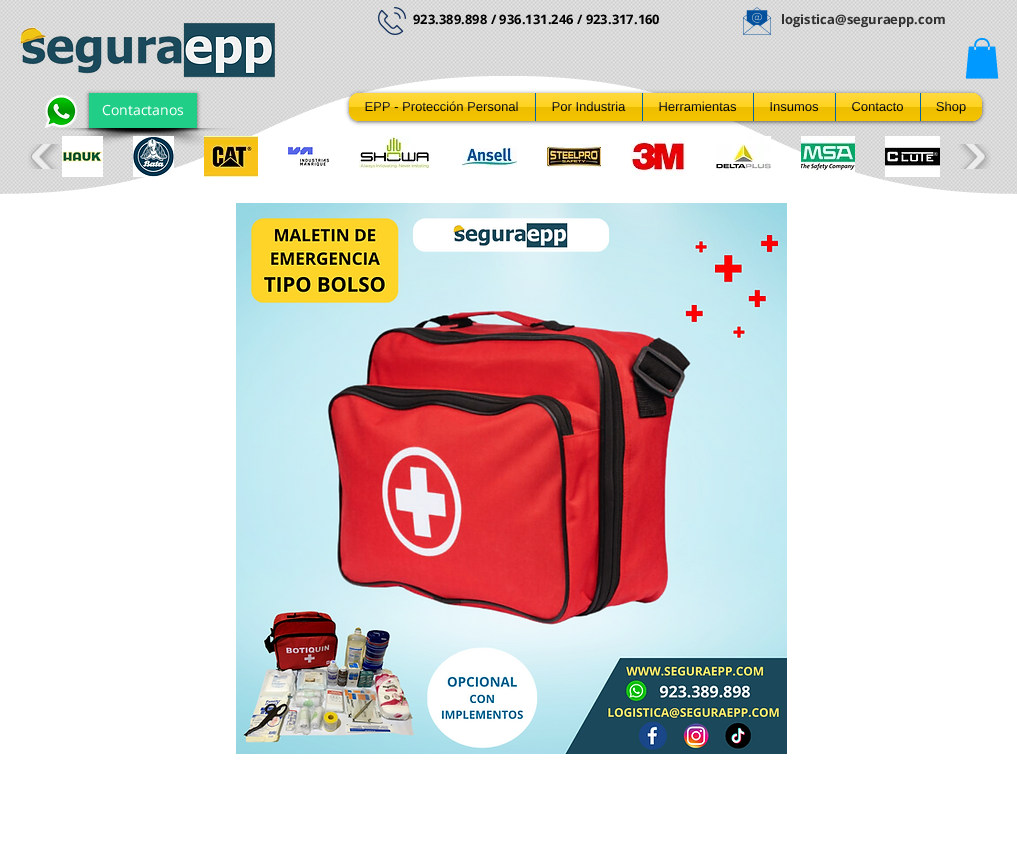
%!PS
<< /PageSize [1017 855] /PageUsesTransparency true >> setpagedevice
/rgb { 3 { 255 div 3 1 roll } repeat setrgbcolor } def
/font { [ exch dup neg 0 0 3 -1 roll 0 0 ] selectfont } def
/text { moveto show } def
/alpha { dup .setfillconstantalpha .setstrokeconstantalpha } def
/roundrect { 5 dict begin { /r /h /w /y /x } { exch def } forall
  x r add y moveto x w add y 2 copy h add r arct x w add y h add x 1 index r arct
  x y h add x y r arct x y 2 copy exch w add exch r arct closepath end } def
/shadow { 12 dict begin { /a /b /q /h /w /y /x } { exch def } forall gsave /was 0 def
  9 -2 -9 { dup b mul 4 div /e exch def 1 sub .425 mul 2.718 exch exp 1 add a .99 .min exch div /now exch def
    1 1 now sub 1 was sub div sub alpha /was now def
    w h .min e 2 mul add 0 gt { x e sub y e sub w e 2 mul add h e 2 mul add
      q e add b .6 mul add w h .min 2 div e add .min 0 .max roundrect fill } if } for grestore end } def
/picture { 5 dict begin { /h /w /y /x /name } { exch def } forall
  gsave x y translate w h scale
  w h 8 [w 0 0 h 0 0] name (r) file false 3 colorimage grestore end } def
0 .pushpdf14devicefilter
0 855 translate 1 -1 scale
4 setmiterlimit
255 255 255 rgb
0 0 1017 855 rectfill
230 229 229 rgb
0 0 1017 194 rectfill
(img_01.rgb) 0 0 1017 194 picture
255 255 255 rgb
1017 194 moveto -254 0 -254 -118 -509 -118 rcurveto -254 0 -254 118 -508 118 rcurveto 0 9 rlineto 1017 0 rlineto closepath fill
(img_02.rgb) 20 22 255 56 picture
(img_03.rgb) 378 7 28 28 picture
(img_04.rgb) 743 7 28 28 picture
(img_05.rgb) 965 38 34 41 picture
(img_06.rgb) 44 95 34 33 picture
(img_08.rgb) 81 128 153 17 picture
(img_07.rgb) 52 128 153 18 picture
0 0 0 rgb
89 94 108 35 0 2 0.6 shadow
32 206 136 rgb
89 93 108 35 rectfill
0 0 0 rgb
349 94 633 28 10 2 0.6 shadow
(img_09.rgb) 349 93 633 28 picture
255 204 0 rgb
359 93 moveto 176 0 rlineto 0 28 rlineto -176 0 rlineto -5.5 0 -10 -4.5 -10 -10 rcurveto 0 -8 rlineto 0 -5.5 4.5 -10 10 -10 rcurveto closepath fill
536 93 106 28 rectfill
0 101 169 rgb
535 93 1 28 rectfill
255 204 0 rgb
643 93 110 28 rectfill
0 101 169 rgb
642 93 1 28 rectfill
255 204 0 rgb
754 93 81 28 rectfill
0 101 169 rgb
753 93 1 28 rectfill
255 204 0 rgb
836 93 84 28 rectfill
0 101 169 rgb
835 93 1 28 rectfill
255 204 0 rgb
920 93 moveto 52 0 rlineto 5.5 0 10 4.5 10 10 rcurveto 0 8 rlineto 0 5.5 -4.5 10 -10 10 rcurveto -52 0 rlineto closepath fill
0 101 169 rgb
920 93 1 28 rectfill
(img_16.rgb) 28 144 32 25 picture
(img_17.rgb) 62 136 41 41 picture
(img_18.rgb) 133 136 41 41 picture
(img_19.rgb) 204 136 54 41 picture
(img_20.rgb) 288 147 41 19 picture
(img_21.rgb) 359 136 72 33 picture
(img_22.rgb) 462 147 55 21 picture
(img_23.rgb) 547 144 54 24 picture
(img_24.rgb) 631 136 55 40 picture
(img_25.rgb) 716 136 55 36 picture
(img_26.rgb) 801 136 54 36 picture
(img_27.rgb) 885 136 55 41 picture
(img_28.rgb) 958 144 33 25 picture
(img_29.rgb) 236 203 551 551 picture
/OpenSans-Bold 13 font
0 0 0 rgb
(923.389.898 / 936.131.246 / 923.317.160) 413 24 text
49 49 49 rgb
(logistica@seguraepp.com) 781 24 text
/OpenSans-Regular 14 font
255 255 255 rgb
(Contactanos) 102 115 text
/LiberationSans-Regular 13 font
0 0 0 rgb
(EPP - Protección Personal) 365 111 text
(img_10.rgb) 349 93 186 28 picture
(Por Industria) 552 111 text
(img_11.rgb) 536 93 106 28 picture
(Herramientas) 658 111 text
(img_12.rgb) 643 93 110 28 picture
(Insumos) 769 111 text
(img_13.rgb) 754 93 81 28 picture
(Contacto) 851 111 text
(img_14.rgb) 836 93 84 28 picture
(Shop) 936 111 text
(img_15.rgb) 921 93 61 28 picture
.poppdf14devicefilter showpage
